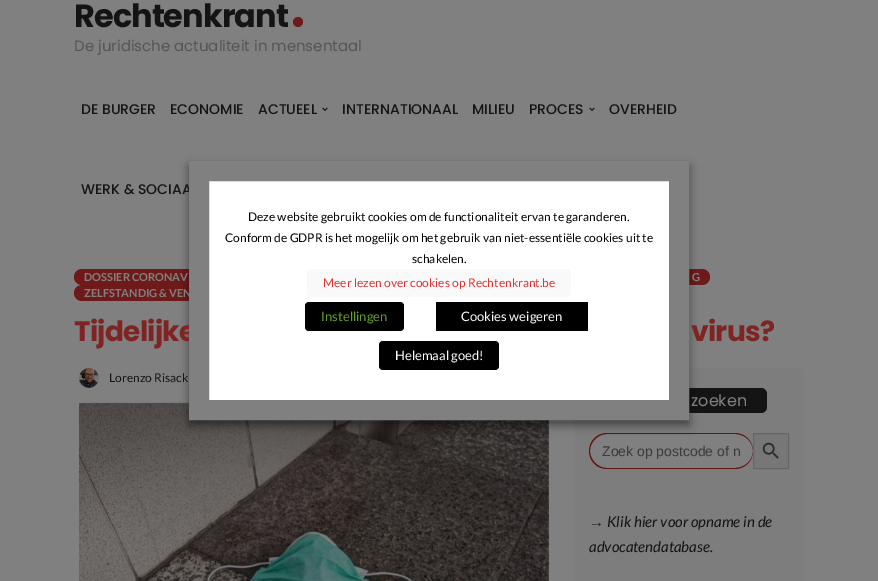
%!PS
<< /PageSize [878 581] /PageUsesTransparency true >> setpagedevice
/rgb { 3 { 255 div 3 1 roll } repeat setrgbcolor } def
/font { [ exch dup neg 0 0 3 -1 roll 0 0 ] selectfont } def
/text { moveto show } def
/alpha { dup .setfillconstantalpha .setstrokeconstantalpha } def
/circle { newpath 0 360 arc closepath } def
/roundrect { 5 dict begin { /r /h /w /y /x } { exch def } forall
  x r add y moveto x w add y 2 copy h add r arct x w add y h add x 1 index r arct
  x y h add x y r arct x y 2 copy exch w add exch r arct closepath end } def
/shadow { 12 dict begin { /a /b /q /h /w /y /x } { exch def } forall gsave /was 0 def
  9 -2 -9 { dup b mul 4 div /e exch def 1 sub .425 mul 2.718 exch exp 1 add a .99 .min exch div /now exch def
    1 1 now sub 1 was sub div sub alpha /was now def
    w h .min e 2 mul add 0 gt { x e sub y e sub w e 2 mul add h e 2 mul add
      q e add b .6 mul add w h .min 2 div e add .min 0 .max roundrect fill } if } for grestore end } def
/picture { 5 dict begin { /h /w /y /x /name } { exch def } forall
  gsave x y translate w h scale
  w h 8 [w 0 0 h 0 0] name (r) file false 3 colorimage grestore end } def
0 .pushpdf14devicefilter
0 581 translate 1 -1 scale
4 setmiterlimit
128 128 128 rgb
0 0 878 581 rectfill
111 26 26 rgb
298 22 5 circle fill
(img_01.rgb) 322 107 6 4 picture
(img_01.rgb) 589 107 6 4 picture
74 269 149 16 8 roundrect fill
587 269 123 16 8 roundrect fill
74 285 196 16 8 roundrect fill
(img_02.rgb) 79 368 20 20 picture
(img_03.rgb) 79 402 470 179 picture
125 125 125 rgb
574 368 230 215 2 roundrect fill
20 20 20 rgb
589 388 178 25 6 roundrect fill
128 128 128 rgb
589 433 164 36 18 roundrect fill
98 20 18 rgb
607 433 moveto 128 0 rlineto 10 0 18 8 18 18 rcurveto 0 10 -8 18 -18 18 rcurveto -128 0 rlineto -10 0 -18 -8 -18 -18 rcurveto 0 -10 8 -18 18 -18 rcurveto closepath 607 434 moveto 128 0 rlineto 10 0 18 8 18 17 rcurveto 0 9 -8 17 -18 17 rcurveto -128 0 rlineto -9 0 -17 -8 -17 -17 rcurveto 0 -9 8 -17 17 -17 rcurveto closepath eofill
119 119 119 rgb
753.5 433.5 moveto 35 0 rlineto 0 35 rlineto -35 0 rlineto closepath gsave fill grestore
102 102 102 rgb
stroke
(img_04.rgb) 762 442 17 17 picture
0 0 0 rgb
189 166 500 259 0 5 0.5 shadow
/Poppins-Bold 32 font
20 20 20 rgb
74 27 moveto -1 0 (Rechtenkrant) ashow
/Poppins-Regular 15 font
85 85 85 rgb
(De juridische actualiteit in mensentaal) 74 51 text
/Poppins-Medium 14 font
20 20 20 rgb
(DE BURGER) 81 114 text
(ECONOMIE) 170 114 text
(ACTUEEL) 258 114 text
(INTERNATIONAAL) 342 114 text
(MILIEU) 472 114 text
(PROCES) 529 114 text
(OVERHEID) 609 114 text
(WERK & SOCIAA) 81 194 text
/Lato-Bold 11 font
128 128 128 rgb
(DOSSIER CORONAV) 84 281 text
(G) 692 281 text
(ZELFSTANDIG & VEN) 84 297 text
/Poppins-Bold 28 font
128 35 35 rgb
74 341 moveto -0.75 0 (Tijdelijke) ashow
691 341 moveto -0.75 0 (virus?) ashow
/Lato-Regular 12 font
20 20 20 rgb
(Lorenzo Risack) 109 382 text
/Poppins-Regular 16 font
128 128 128 rgb
(zoeken) 691 406 text
/LiberationSans-Regular 14 font
59 59 59 rgb
(Zoek op postcode of n) 602 456 text
/LiberationSerif-Italic 15 font
20 20 20 rgb
(→) 589 527 text
/Lato-Italic 15 font
(Klik hier voor opname in de) 607 527 text
(advocatendatabase.) 589 552 text
255 255 255 rgb
199 171 moveto 480 0 rlineto 0 239 rlineto -480 0 rlineto closepath gsave fill grestore
128 128 128 rgb
20 setlinewidth
stroke
/Lato-Regular 12 font
0 0 0 rgb
(Deze website gebruikt cookies om de functionaliteit ervan te garanderen.) 248 221 text
(Conform de GDPR is het mogelijk om het gebruik van niet-essentiële cookies uit te) 225 242 text
(schakelen.) 412 263 text
249 249 249 rgb
307 269 264 28 4 roundrect fill
221 51 51 rgb
(Meer lezen over cookies op Rechtenkrant.be) 323 287 text
0 0 0 rgb
305 302 99 29 4 roundrect fill
/Lato-Regular 13 font
98 163 41 rgb
(Instellingen) 321 321 text
0 0 0 rgb
436 302 152 29 rectfill
255 255 255 rgb
(Cookies weigeren) 461 321 text
0 0 0 rgb
379 341 120 29 4 roundrect fill
255 255 255 rgb
(Helemaal goed!) 395 360 text
.poppdf14devicefilter showpage
